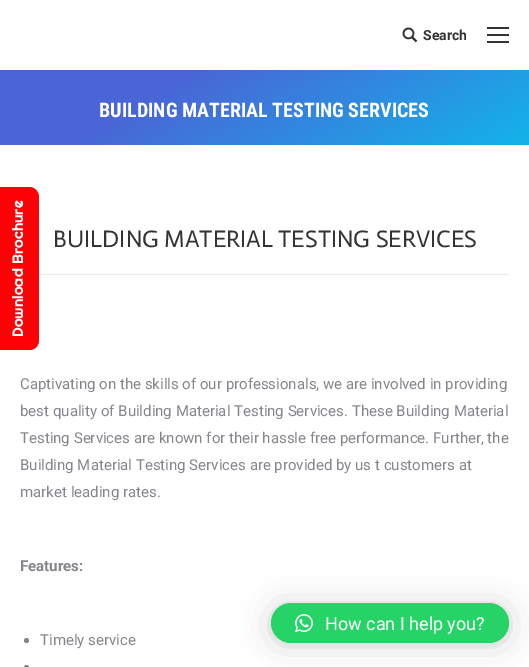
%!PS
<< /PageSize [529 667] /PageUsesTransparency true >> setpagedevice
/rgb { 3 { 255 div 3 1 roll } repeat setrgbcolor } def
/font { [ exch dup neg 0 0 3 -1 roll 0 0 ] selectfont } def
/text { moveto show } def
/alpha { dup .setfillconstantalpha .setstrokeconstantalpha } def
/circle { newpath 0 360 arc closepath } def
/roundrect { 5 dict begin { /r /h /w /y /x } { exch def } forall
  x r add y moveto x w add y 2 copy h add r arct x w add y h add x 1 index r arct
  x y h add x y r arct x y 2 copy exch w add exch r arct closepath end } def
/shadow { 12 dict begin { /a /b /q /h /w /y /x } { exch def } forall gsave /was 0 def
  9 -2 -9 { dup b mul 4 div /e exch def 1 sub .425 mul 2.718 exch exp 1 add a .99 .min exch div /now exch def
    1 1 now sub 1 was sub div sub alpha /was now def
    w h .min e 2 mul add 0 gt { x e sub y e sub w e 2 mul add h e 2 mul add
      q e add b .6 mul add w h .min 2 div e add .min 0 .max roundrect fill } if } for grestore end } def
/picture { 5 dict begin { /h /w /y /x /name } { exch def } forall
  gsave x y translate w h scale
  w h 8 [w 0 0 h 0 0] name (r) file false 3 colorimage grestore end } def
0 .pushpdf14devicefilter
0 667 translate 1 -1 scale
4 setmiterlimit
255 255 255 rgb
0 0 529 667 rectfill
255 0 6 rgb
-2 350 moveto 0 -163 rlineto 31 0 rlineto 6 0 10 5 10 10 rcurveto 0 143 rlineto 0 6 -4 10 -10 10 rcurveto closepath fill
(img_01.rgb) 402 27 16 16 picture
51 51 51 rgb
487 34 22 2 rectfill
487 27 22 2 rectfill
487 41 22 2 rectfill
gsave 0 70 moveto 529 0 rlineto 0 75 rlineto -529 0 rlineto closepath clip newpath
<< /ShadingType 2 /ColorSpace /DeviceRGB /Coords [178 -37 351 252] /Extend [true true] /Function << /FunctionType 3 /Domain [0 1] /Functions [<< /FunctionType 2 /Domain [0 1] /C0 [0.29 0.4 0.839] /C1 [0.29 0.4 0.839] /N 1 >> << /FunctionType 2 /Domain [0 1] /C0 [0.29 0.4 0.839] /C1 [0.071 0.706 0.918] /N 1 >>] /Bounds [0.3] /Encode [0 1 0 1] >> >> shfill grestore
235 235 235 rgb
39 274 470 1 rectfill
133 134 140 rgb
26.5 640.5 2.5 circle fill
26.5 667.5 2.5 circle fill
0 0 0 rgb
271 605 238 40 20 16 0.16 shadow
271 604 238 40 20 3 0.06 shadow
37 211 102 rgb
271 603 238 40 20 roundrect fill
(img_02.rgb) 295 614 18 19 picture
/Righteous-Regular 15 font
255 255 255 rgb
gsave 23 337 translate -90 rotate 0 0 moveto (Download Brochure) show grestore
/Roboto-Bold 14 font
51 51 51 rgb
(Search) 423 40 text
/RobotoCondensed-Bold 20 font
255 255 255 rgb
(BUILDING MATERIAL TESTING SERVICES) 99 117 text
/Actor-Regular 24 font
51 51 51 rgb
(BUILDING MATERIAL TESTING SERVICES) 53 247 text
/Roboto-Regular 15 font
133 134 140 rgb
(Captivating on the skills of our professionals, we are involved in providing) 20 389 text
(best quality of Building Material Testing Services. These Building Material) 20 416 text
(Testing Services are known for their hassle free performance. Further, the) 20 443 text
(Building Material Testing Services are provided by us t customers at) 20 470 text
(market leading rates.) 20 497 text
/Roboto-Bold 15 font
(Features:) 20 571 text
/Roboto-Regular 15 font
(Timely service) 40 645 text
/Roboto-Regular 18 font
255 255 255 rgb
(How can I help you?) 325 630 text
.poppdf14devicefilter showpage
